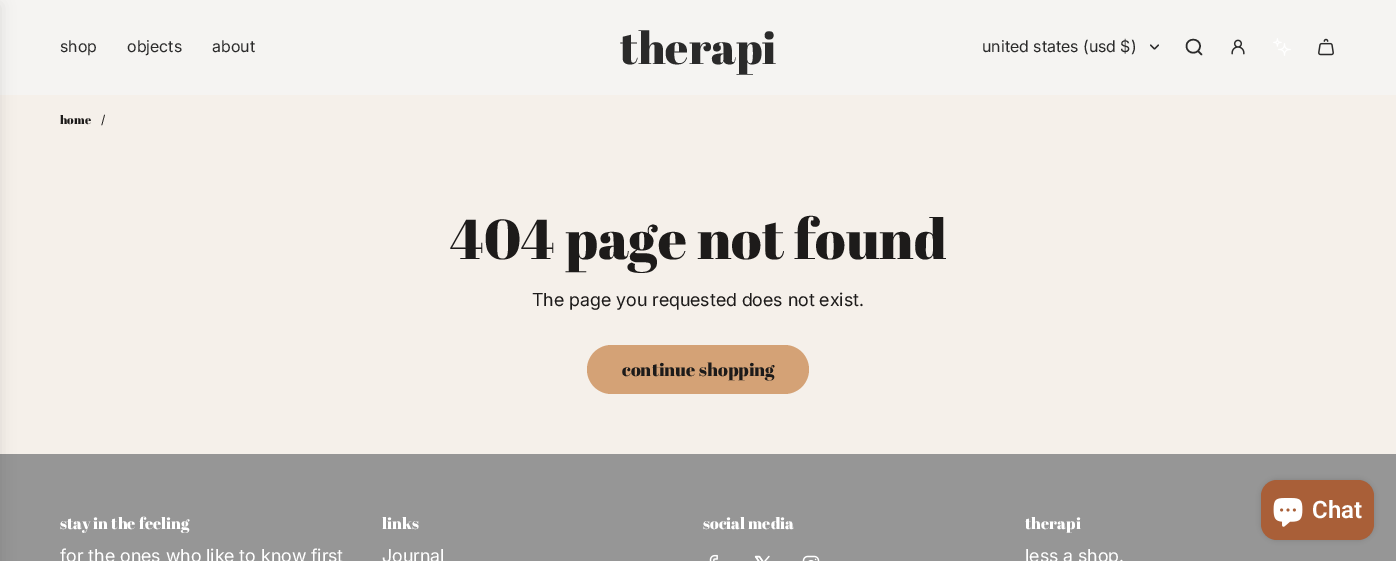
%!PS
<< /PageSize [1396 561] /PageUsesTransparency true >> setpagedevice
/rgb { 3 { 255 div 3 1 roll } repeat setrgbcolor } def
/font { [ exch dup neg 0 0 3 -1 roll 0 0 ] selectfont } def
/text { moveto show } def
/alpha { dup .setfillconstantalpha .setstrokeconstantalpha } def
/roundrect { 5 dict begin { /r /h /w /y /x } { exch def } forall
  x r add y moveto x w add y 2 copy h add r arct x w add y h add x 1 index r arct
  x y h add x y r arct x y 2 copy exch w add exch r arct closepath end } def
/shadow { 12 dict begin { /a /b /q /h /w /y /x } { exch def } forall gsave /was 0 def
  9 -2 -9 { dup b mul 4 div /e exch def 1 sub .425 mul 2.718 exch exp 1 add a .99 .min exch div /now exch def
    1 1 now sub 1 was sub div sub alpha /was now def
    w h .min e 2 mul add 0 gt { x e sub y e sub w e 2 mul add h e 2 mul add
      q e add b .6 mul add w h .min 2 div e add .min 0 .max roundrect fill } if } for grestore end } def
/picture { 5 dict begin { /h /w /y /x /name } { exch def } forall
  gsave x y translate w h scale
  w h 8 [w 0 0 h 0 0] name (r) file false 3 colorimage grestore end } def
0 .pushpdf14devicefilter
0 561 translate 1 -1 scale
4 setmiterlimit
245 240 234 rgb
0 0 1396 561 rectfill
245 244 242 rgb
0 0 1396 95 rectfill
150 150 150 rgb
0 454 1396 107 rectfill
0 0 0 rgb
-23 5 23 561 0 7.5 0.1 shadow
42 42 42 rgb
1.2 setlinewidth
1 setlinecap
1 setlinejoin
1150.5 45 moveto 4 4 rlineto 4 -4 rlineto stroke
1.5 setlinewidth
1198 51 moveto 3.5 3.5 rlineto 1186.5 46 moveto 0 9 13.5 9 13.5 0 rcurveto 0 -8.5 -13.5 -8.5 -13.5 0 rcurveto closepath stroke
(img_01.rgb) 1231 39 14 16 picture
(img_02.rgb) 1273 38 18 18 picture
(img_03.rgb) 1318 38 16 18 picture
212 162 118 rgb
587 345 222 49 24.5 roundrect fill
0 0 0 rgb
1261 480 113 60 16 2.5 0.15 shadow
169 95 56 rgb
1261 480 113 60 16 roundrect fill
(img_04.rgb) 1273 498 30 29 picture
(img_05.rgb) 709 554 9 7 picture
(img_06.rgb) 754 555 16 6 picture
(img_07.rgb) 802 555 18 6 picture
/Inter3-Regular 16 font
42 42 42 rgb
(shop) 60 52 text
(objects) 127 52 text
(about) 212 52 text
/AbrilFatface-Regular 45 font
(therapi) 620 64 text
/Inter3-Regular 16 font
(united states \(usd $\)) 982 52 text
/AbrilFatface-Regular 12 font
29 27 26 rgb
(home) 60 124 text
/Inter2-Regular 12 font
(/) 101 124 text
/AbrilFatface-Regular 56 font
(404 page not found) 450 259 text
/Inter-Regular 18 font
(The page you requested does not exist.) 532 306 text
/AbrilFatface-Regular 18 font
(continue shopping) 622 376 text
/Roboto-SemiBold 24 font
255 255 255 rgb
(Chat) 1312 518 text
/AbrilFatface-Regular 16 font
(stay in the feeling) 60 529 text
/Inter-Regular 18 font
(for the ones who like to know first) 60 562 text
/AbrilFatface-Regular 16 font
(links) 382 529 text
/Inter-Regular 18 font
(Journal) 382 562 text
/AbrilFatface-Regular 16 font
(social media) 703 529 text
(therapi) 1025 529 text
/Inter-Regular 18 font
(less a shop.) 1025 562 text
.poppdf14devicefilter showpage
